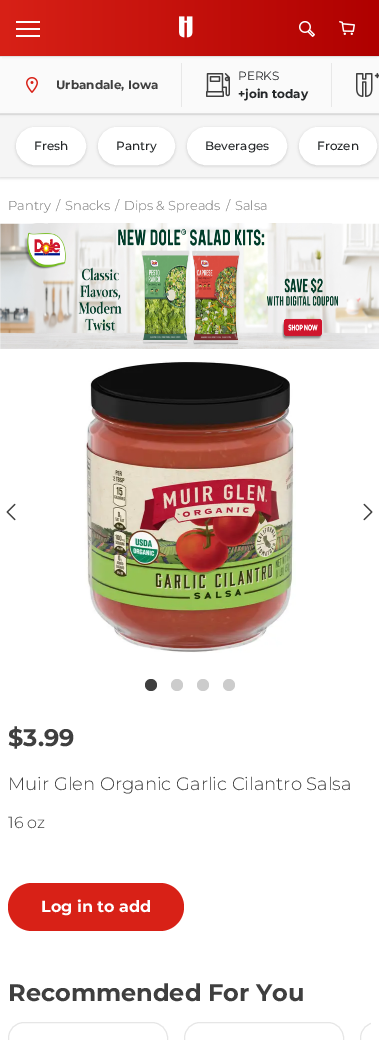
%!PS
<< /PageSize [379 1040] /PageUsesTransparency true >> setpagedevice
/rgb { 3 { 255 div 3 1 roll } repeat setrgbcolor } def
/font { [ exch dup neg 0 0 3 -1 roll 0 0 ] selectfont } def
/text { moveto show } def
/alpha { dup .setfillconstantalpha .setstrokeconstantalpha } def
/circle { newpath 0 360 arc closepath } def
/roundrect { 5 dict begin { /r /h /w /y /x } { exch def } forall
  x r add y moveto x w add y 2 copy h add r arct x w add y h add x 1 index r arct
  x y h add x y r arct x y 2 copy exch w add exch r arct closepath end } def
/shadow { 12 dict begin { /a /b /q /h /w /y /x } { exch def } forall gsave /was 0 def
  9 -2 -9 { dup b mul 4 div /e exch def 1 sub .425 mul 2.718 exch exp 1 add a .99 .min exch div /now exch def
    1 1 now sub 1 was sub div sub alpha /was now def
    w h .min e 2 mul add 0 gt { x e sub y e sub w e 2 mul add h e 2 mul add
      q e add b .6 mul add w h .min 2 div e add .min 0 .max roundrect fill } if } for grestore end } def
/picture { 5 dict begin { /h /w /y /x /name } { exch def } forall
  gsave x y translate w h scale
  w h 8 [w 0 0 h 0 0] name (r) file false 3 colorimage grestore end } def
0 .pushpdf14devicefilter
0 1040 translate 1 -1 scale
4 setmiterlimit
255 255 255 rgb
0 0 379 1040 rectfill
gsave 0 0 moveto 379 0 rlineto 0 56 rlineto -379 0 rlineto closepath clip newpath
<< /ShadingType 2 /ColorSpace /DeviceRGB /Coords [0 28 379 28] /Extend [true true] /Function << /FunctionType 2 /Domain [0 1] /C0 [0.847 0.129 0.09] /C1 [0.686 0 0] /N 1 >> >> shfill grestore
gsave
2 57 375 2 rectclip
0 0 0 rgb
2 4 375 52 0 2 0.2 shadow
grestore
16 28 24 2 rectfill
16 21 24 2 rectfill
16 35 24 2 rectfill
(img_01.rgb) 179 16 14 22 picture
(img_02.rgb) 299 21 16 16 picture
(img_03.rgb) 339 21 16 14 picture
232 232 232 rgb
0 56 379 1 rectfill
0 0 0 rgb
0 115 379 63 0 1.5 0.15 shadow
245 245 245 rgb
0 115 379 62 rectfill
232 232 232 rgb
0 114 379 1 rectfill
gsave
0 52 moveto 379 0 rlineto 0 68 rlineto -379 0 rlineto closepath 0 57 moveto 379 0 rlineto 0 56 rlineto -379 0 rlineto closepath eoclip newpath
0 0 0 rgb
0 58 379 56 0 1.5 0.15 shadow
grestore
0.5 alpha
245 245 245 rgb
0 57 379 56 rectfill
1 alpha
(img_04.rgb) 26 77 12 16 picture
232 232 232 rgb
181 63 1 44 rectfill
(img_05.rgb) 206 73 24 24 picture
331 63 1 44 rectfill
(img_06.rgb) 356 73 23 24 picture
0 0 0 rgb
16 128 70 38 19 1.5 0.15 shadow
255 255 255 rgb
17 128 68 36 18 roundrect gsave fill grestore
2 setlinewidth
stroke
0 0 0 rgb
98 128 77 38 19 1.5 0.15 shadow
255 255 255 rgb
99 128 75 36 18 roundrect gsave fill grestore
stroke
0 0 0 rgb
187 128 100 38 19 1.5 0.15 shadow
255 255 255 rgb
188 128 98 36 18 roundrect gsave fill grestore
stroke
0 0 0 rgb
299 128 78 38 19 1.5 0.15 shadow
255 255 255 rgb
300 128 76 36 18 roundrect gsave fill grestore
stroke
(img_07.rgb) 0 223 379 126 picture
(img_08.rgb) 6 503 10 18 picture
(img_09.rgb) 84 361 212 292 picture
(img_10.rgb) 363 503 10 18 picture
63 63 63 rgb
151 685 6 circle fill
204 204 204 rgb
177 685 6 circle fill
203 685 6 circle fill
229 685 6 circle fill
216 33 23 rgb
8 883 176 48 24 roundrect fill
230 230 230 rgb
1 setlinewidth
8.5 1022.5 159 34 15.5 roundrect stroke
184.5 1022.5 159 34 15.5 roundrect stroke
gsave
8 1022 363 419 rectclip
360.5 1022.5 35 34 15.5 roundrect stroke
grestore
/Montserrat-Bold 12 font
63 63 63 rgb
(Urbandale, Iowa) 56 89 text
/Montserrat-Regular 12 font
36 39 41 rgb
(PERKS) 238 80 text
/Montserrat-Bold 12 font
(+join today) 238 98 text
/Montserrat-Medium 12 font
(Fresh) 34 150 text
(Pantry) 116 150 text
(Beverages) 205 150 text
(Frozen) 317 150 text
/Montserrat-Light 13 font
112 112 112 rgb
(Pantry) 8 210 text
(/) 56 210 text
(Snacks) 65 210 text
(/) 115 210 text
(Dips & Spreads) 124 210 text
(/) 226 210 text
(Salsa) 235 210 text
/Montserrat-Bold 24 font
63 63 63 rgb
($3.99) 8 746 text
/Montserrat-Light 18 font
(Muir Glen Organic Garlic Cilantro Salsa) 8 790 text
/Montserrat-Light 16 font
(16 oz) 8 828 text
/Montserrat-Bold 16 font
255 255 255 rgb
(Log in to add) 41 912 text
/Montserrat-Bold 24 font
63 63 63 rgb
(Recommended For You) 8 1001 text
.poppdf14devicefilter showpage
